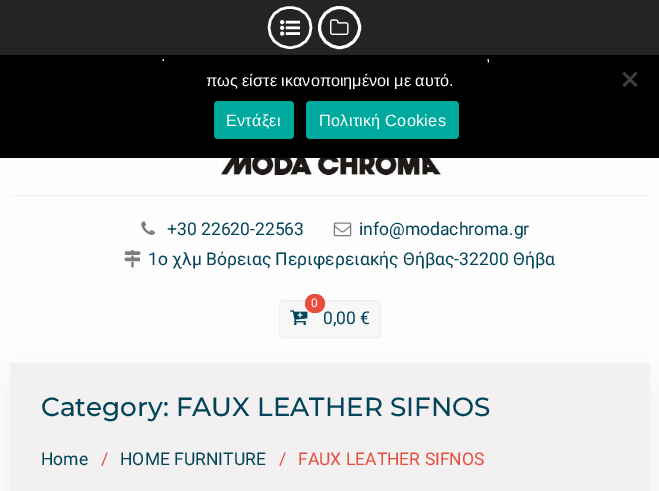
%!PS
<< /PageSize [659 491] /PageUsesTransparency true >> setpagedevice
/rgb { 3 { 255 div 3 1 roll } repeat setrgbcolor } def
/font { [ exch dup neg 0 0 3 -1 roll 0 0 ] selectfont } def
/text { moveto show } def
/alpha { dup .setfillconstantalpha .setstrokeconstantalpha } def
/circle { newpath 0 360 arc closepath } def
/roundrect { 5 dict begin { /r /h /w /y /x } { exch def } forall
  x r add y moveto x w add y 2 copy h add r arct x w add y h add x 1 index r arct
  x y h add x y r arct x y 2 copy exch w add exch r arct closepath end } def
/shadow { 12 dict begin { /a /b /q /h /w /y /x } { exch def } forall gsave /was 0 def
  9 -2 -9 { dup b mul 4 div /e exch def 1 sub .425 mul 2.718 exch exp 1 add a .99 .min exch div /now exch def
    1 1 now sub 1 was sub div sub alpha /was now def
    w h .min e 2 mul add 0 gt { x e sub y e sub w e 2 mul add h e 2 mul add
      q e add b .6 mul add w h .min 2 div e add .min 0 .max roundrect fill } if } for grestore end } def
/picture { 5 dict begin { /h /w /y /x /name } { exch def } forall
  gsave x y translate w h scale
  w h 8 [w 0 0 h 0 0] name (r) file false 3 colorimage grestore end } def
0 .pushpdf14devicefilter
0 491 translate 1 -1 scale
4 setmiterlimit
253 253 253 rgb
0 0 659 491 rectfill
0 0 0 rgb
0 55 659 103 rectfill
64 64 64 rgb
635.5 72 moveto 2 1.5 rlineto -13 13.5 rlineto -2 -2 rlineto closepath fill
622.5 73.5 moveto 2 -1.5 rlineto 13 13 rlineto -2 2 rlineto closepath fill
0 169 157 rgb
214 101 80 38 4 roundrect fill
306 101 153 38 4 roundrect fill
36 36 36 rgb
0 0 659 55 rectfill
255 255 254 rgb
2.5 setlinewidth
290 7.5 moveto 28 0 28 40 0 40 rcurveto -28 0 -28 -40 0 -40 rcurveto closepath stroke
(img_01.rgb) 280 20 20 16 picture
255 255 255 rgb
3 setlinewidth
339.5 27.5 20 circle stroke
(img_02.rgb) 330 19 19 16 picture
241 241 241 rgb
10 195 640 1 rectfill
(img_03.rgb) 219 158 223 18 picture
(img_04.rgb) 141 221 14 14 picture
(img_05.rgb) 333 222 19 15 picture
(img_06.rgb) 124 250 17 18 picture
239 239 239 rgb
10 390 640 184 0 27.5 1 shadow
247 247 247 rgb
279.5 300.5 101 37 3.5 roundrect gsave fill grestore
239 239 239 rgb
1 setlinewidth
stroke
(img_07.rgb) 290 310 18 16 picture
242 240 240 rgb
10 363 640 128 rectfill
/LiberationSans-Regular 16.25 font
255 255 255 rgb
(.) 161 61 text
(,) 486 61 text
(πως είστε ικανοποιημένοι με αυτό.) 206 86 text
226 126 moveto 0.25 0 (Εντάξει) ashow
319 126 moveto 0.25 0 (Πολιτική Cookies) ashow
/Roboto-Regular 17.5 font
2 68 89 rgb
(+30 22620-22563) 167 235 text
(info@modachroma.gr) 359 235 text
(1ο χλμ Βόρειας Περιφερειακής Θήβας-32200 Θήβα) 148 265 text
(0,00 €) 323 324 text
231 76 60 rgb
305 294 20 19 9.5 roundrect fill
/Roboto-Regular 12 font
255 255 255 rgb
(0) 311 307 text
/Montserrat-Medium 26.25 font
2 68 89 rgb
(Category: FAUX LEATHER SIFNOS) 41 416 text
/Roboto-Regular 17.5 font
(Home) 41 465 text
231 76 60 rgb
(/) 101 465 text
2 68 89 rgb
(HOME FURNITURE) 120 465 text
231 76 60 rgb
(/) 279 465 text
(FAUX LEATHER SIFNOS) 298 465 text
.poppdf14devicefilter showpage
